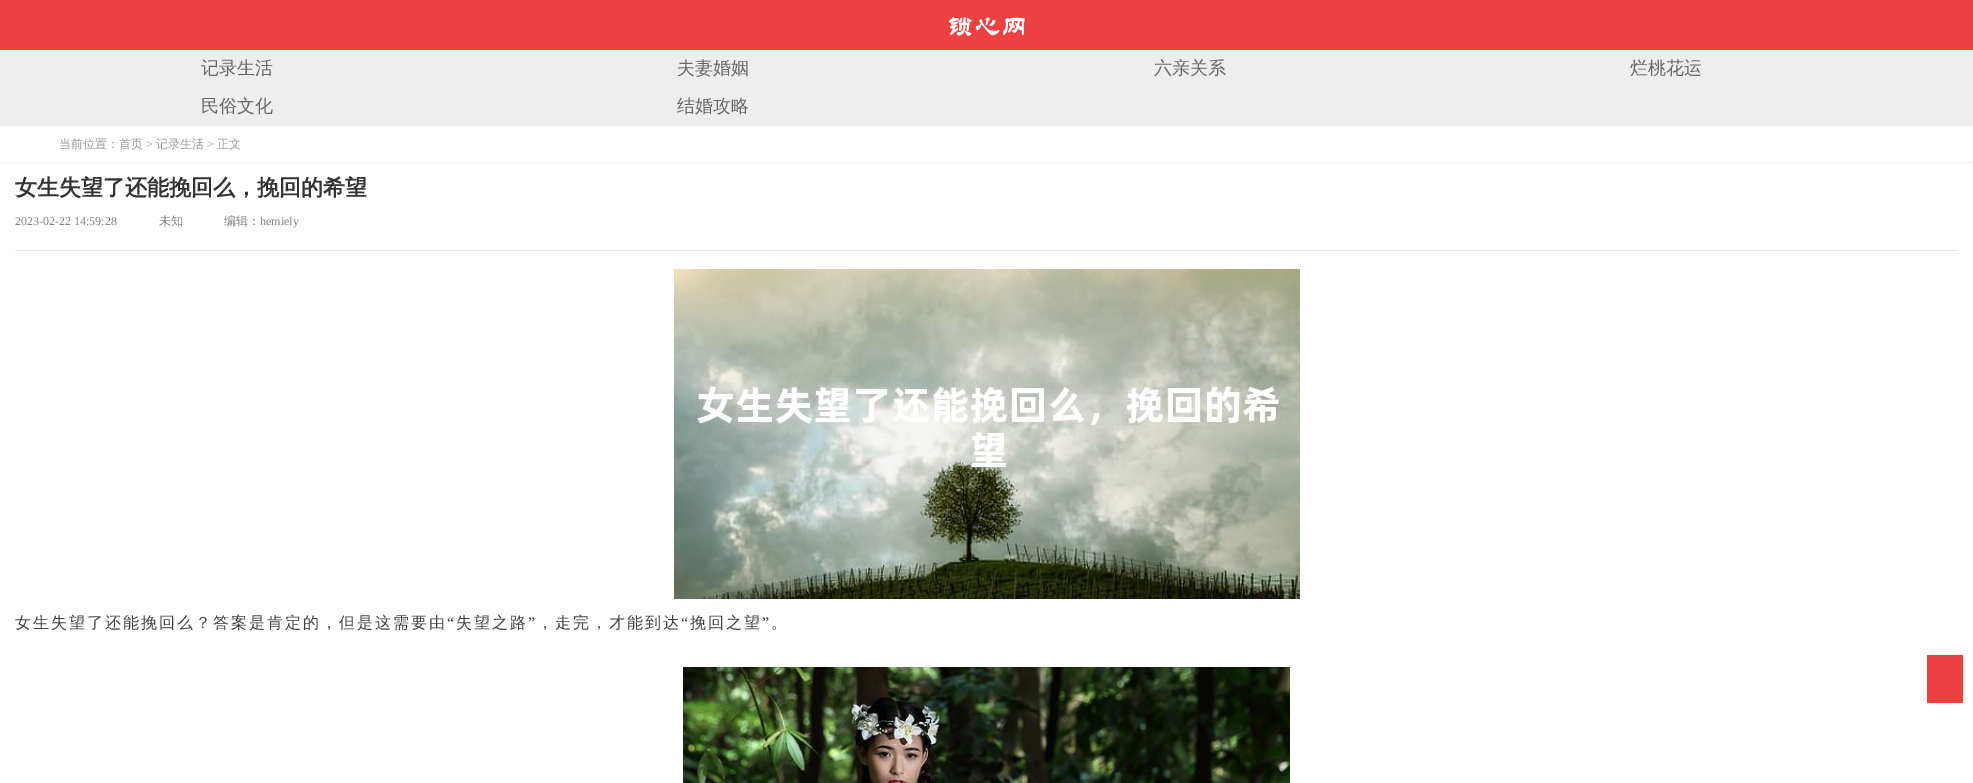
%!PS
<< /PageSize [1973 783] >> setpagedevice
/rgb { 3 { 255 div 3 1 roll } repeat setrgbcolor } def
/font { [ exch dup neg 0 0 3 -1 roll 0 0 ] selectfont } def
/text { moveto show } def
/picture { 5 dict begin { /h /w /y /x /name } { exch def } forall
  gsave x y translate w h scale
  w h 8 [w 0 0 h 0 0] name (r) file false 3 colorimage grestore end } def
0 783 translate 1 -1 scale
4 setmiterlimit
255 255 255 rgb
0 0 1973 783 rectfill
237 64 64 rgb
0 0 1973 50 rectfill
(img_01.rgb) 948 17 77 19 picture
238 238 238 rgb
0 50 1973 76 rectfill
[1 1] 0 setdash
0 162.5 moveto 1973 0 rlineto stroke
233 233 234 rgb
15 250 1943 1 rectfill
(img_02.rgb) 674 269 626 330 picture
(img_03.rgb) 683 667 607 116 picture
237 64 64 rgb
1927 655 36 48 rectfill
/WenQuanYiZenHei-Medium 18 font
102 102 102 rgb
(记录生活) 201 74 text
(夫妻婚姻) 677 74 text
(六亲关系) 1154 74 text
(烂桃花运) 1630 74 text
(民俗文化) 201 112 text
(结婚攻略) 677 112 text
/WenQuanYiZenHei-Medium 12 font
153 153 153 rgb
(当前位置：首页) 59 148 text
/LiberationSerif-Regular 12 font
(>) 146 148 text
/WenQuanYiZenHei-Medium 12 font
(记录生活) 156 148 text
/LiberationSerif-Regular 12 font
(>) 207 148 text
/WenQuanYiZenHei-Medium 12 font
(正文) 217 148 text
/WenQuanYiZenHei-Bold 22 font
51 51 51 rgb
(女生失望了还能挽回么，挽回的希望) 15 195 text
/LiberationSerif-Regular 12 font
130 130 130 rgb
(2023-02-22 14:59:28) 15 225 text
/WenQuanYiZenHei-Medium 12 font
(未知) 159 225 text
(编辑：) 224 225 text
/LiberationSerif-Regular 12 font
(hemiely) 260 225 text
/WenQuanYiZenHei-Medium 16 font
64 64 64 rgb
15 628 moveto 2 0 (女生失望了还能挽回么？答案是肯定的，但是这需要由) ashow
/LiberationSerif-Regular 16 font
447 628 moveto 2 0 (“) ashow
/WenQuanYiZenHei-Medium 16 font
456 628 moveto 2 0 (失望之路) ashow
/LiberationSerif-Regular 16 font
528 628 moveto 2 0 (”) ashow
/WenQuanYiZenHei-Medium 16 font
537 628 moveto 2 0 (，走完，才能到达) ashow
/LiberationSerif-Regular 16 font
681 628 moveto 2 0 (“) ashow
/WenQuanYiZenHei-Medium 16 font
690 628 moveto 2 0 (挽回之望) ashow
/LiberationSerif-Regular 16 font
762 628 moveto 2 0 (”) ashow
/WenQuanYiZenHei-Medium 16 font
771 628 moveto 2 0 (。) ashow
showpage
